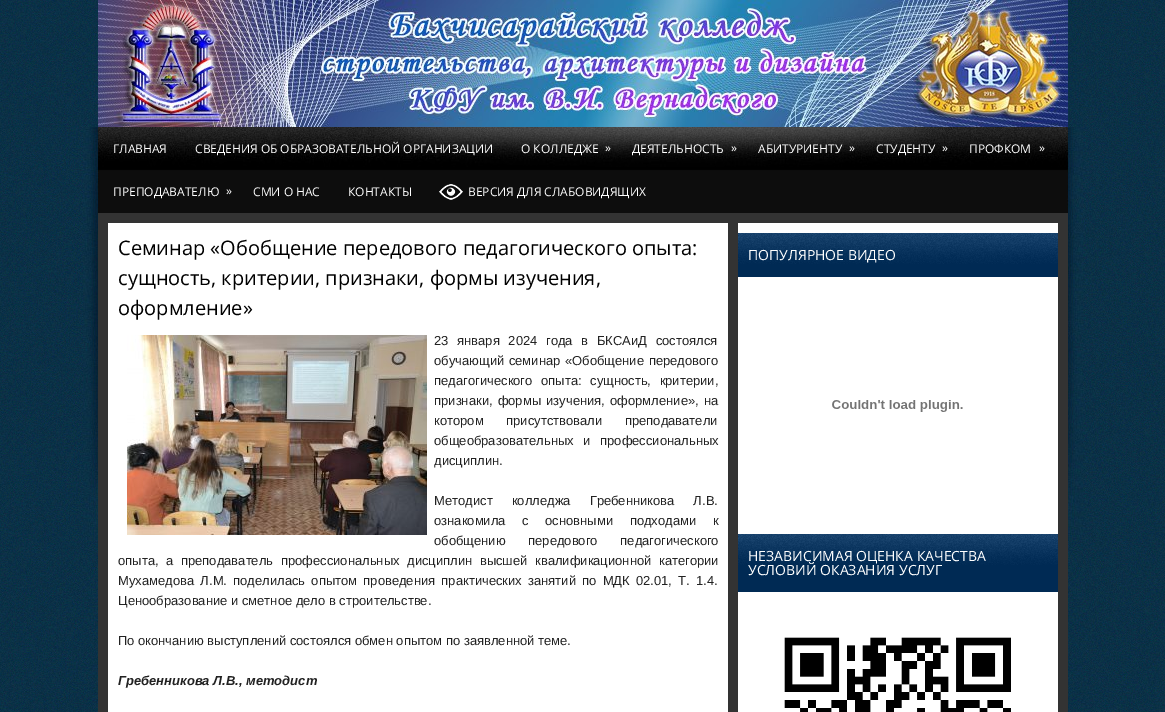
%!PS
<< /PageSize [1165 712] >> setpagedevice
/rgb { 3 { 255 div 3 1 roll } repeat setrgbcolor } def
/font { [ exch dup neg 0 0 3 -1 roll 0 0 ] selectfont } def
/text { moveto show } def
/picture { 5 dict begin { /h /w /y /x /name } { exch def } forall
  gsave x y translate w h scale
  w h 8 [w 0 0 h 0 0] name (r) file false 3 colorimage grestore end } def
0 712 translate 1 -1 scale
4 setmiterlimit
255 255 255 rgb
0 0 1165 712 rectfill
(img_01.rgb) 0 0 1165 712 picture
(img_02.rgb) 98 0 970 127 picture
(img_03.rgb) 83 127 1000 413 picture
(img_04.rgb) 439 184 24 16 picture
51 51 51 rgb
98 213 970 499 rectfill
255 255 255 rgb
108 223 620 489 rectfill
(img_05.rgb) 127 335 300 200 picture
738 223 320 489 rectfill
0 42 84 rgb
738 264 320 13 rectfill
(img_06.rgb) 738 233 320 31 picture
(img_07.rgb) 832 400 131 12 picture
738 565 320 27 rectfill
(img_06.rgb) 738 534 320 31 picture
(img_08.rgb) 784 637 227 75 picture
/OpenSans-Regular 12 font
255 255 255 rgb
(ГЛАВНАЯ) 113 153 text
(СВЕДЕНИЯ ОБ ОБРАЗОВАТЕЛЬНОЙ ОРГАНИЗАЦИИ) 195 153 text
(О КОЛЛЕДЖЕ) 521 153 text
(») 605 152 text
(ДЕЯТЕЛЬНОСТЬ) 632 153 text
(») 731 152 text
(АБИТУРИЕНТУ) 758 153 text
(») 849 152 text
(СТУДЕНТУ) 876 153 text
(») 942 152 text
(ПРОФКОМ) 969 153 text
(») 1039 152 text
(ПРЕПОДАВАТЕЛЮ) 113 196 text
(») 226 195 text
(СМИ О НАС) 253 196 text
(КОНТАКТЫ) 348 196 text
(ВЕРСИЯ ДЛЯ СЛАБОВИДЯЩИХ) 468 196 text
/OpenSans-Regular 20 font
0 0 0 rgb
(Cеминар «Обобщение передового педагогического опыта:) 118 255 text
(сущность, критерии, признаки, формы изучения,) 118 285 text
(оформление») 118 315 text
/LiberationSans-Regular 13 font
34 34 34 rgb
434 345 moveto 5 0 32 (23 января 2024 года в БКСАиД состоялся) widthshow
434 365 moveto 1 0 32 (обучающий семинар «Обобщение передового) widthshow
434 385 moveto 5 0 32 (педагогического опыта: сущность, критерии,) widthshow
434 405 moveto 1.5 0 32 (признаки, формы изучения, оформление», на) widthshow
434 425 moveto 19 0 32 (котором присутствовали преподаватели) widthshow
434 445 moveto 6 0 32 (общеобразовательных и профессиональных) widthshow
(дисциплин.) 434 465 text
434 505 moveto 15.5 0 32 (Методист колледжа Гребенникова Л.В.) widthshow
434 525 moveto 13 0 32 (ознакомила с основными подходами к) widthshow
434 545 moveto 19 0 32 (обобщению передового педагогического) widthshow
118 565 moveto 4 0 32 (опыта, а преподаватель профессиональных дисциплин высшей квалификационной категории) widthshow
118 585 moveto 2.6 0 32 (Мухамедова Л.М. поделилась опытом проведения практических занятий по МДК 02.01, Т. 1.4.) widthshow
(Ценообразование и сметное дело в строительстве.) 118 605 text
(По окончанию выступлений состоялся обмен опытом по заявленной теме.) 118 645 text
/LiberationSans-BoldItalic 13 font
(Гребенникова Л.В., методист) 118 685 text
/OpenSans-Regular 14 font
255 255 255 rgb
(ПОПУЛЯРНОЕ ВИДЕО) 748 260 text
(НЕЗАВИСИМАЯ ОЦЕНКА КАЧЕСТВА) 748 561 text
(УСЛОВИЙ ОКАЗАНИЯ УСЛУГ) 748 575 text
showpage
